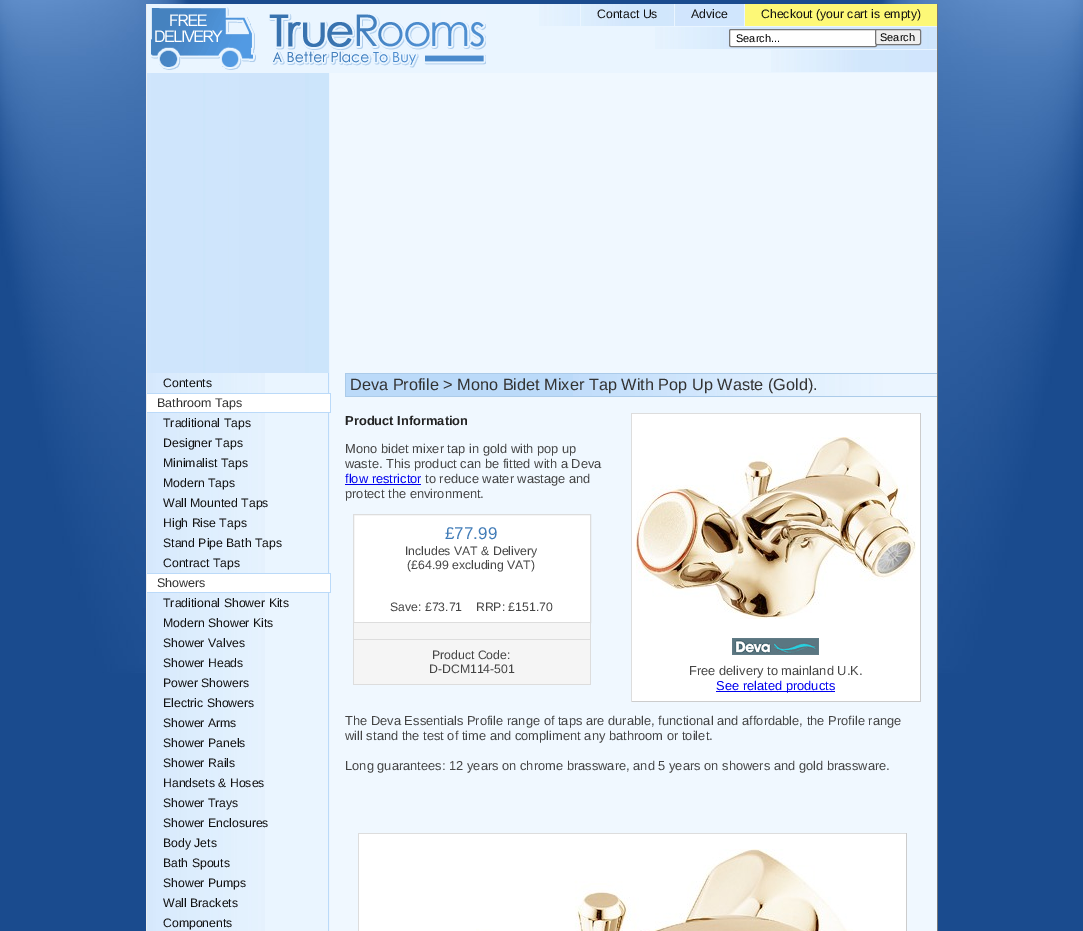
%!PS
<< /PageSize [1083 931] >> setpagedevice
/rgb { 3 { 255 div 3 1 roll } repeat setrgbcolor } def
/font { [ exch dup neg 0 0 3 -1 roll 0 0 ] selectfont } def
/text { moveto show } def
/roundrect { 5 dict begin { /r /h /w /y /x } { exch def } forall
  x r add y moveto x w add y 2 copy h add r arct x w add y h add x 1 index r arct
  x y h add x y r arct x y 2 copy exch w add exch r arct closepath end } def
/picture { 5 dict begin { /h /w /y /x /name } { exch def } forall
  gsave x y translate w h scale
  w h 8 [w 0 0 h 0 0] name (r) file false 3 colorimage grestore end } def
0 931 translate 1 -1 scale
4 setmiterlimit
26 75 142 rgb
0 0 1083 931 rectfill
(img_01.rgb) 0 0 1083 673 picture
240 248 255 rgb
330 73 607 858 rectfill
(img_02.rgb) 147 73 183 858 picture
119 119 119 rgb
937 4 1 927 rectfill
238 238 238 rgb
146 4 1 927 rectfill
234 245 255 rgb
147 4 624 68 rectfill
(img_03.rgb) 151 7 335 63 picture
(img_04.rgb) 539 4 205 22 picture
771 26 166 1 rectfill
580 4 1 22 rectfill
674 4 1 22 rectfill
253 248 119 rgb
745 4 192 22 rectfill
(img_05.rgb) 655 27 282 22 picture
234 245 255 rgb
771 49 166 1 rectfill
255 255 255 rgb
729.5 29.5 147 17 1.5 roundrect gsave fill grestore
118 118 118 rgb
stroke
239 239 239 rgb
875.5 29.5 45 15 1.5 roundrect gsave fill grestore
118 118 118 rgb
stroke
(img_06.rgb) 771 50 166 22 picture
234 245 255 rgb
147 72 790 1 rectfill
265 373 63 20 rectfill
(img_07.rgb) 147 373 118 20 picture
187 218 249 rgb
328 373 1 20 rectfill
255 255 255 rgb
147 394 183 18 rectfill
187 218 249 rgb
147 393 184 1 rectfill
330 393 1 20 rectfill
147 412 184 1 rectfill
234 245 255 rgb
265 413 63 160 rectfill
(img_07.rgb) 147 413 118 20 picture
187 218 249 rgb
328 413 1 160 rectfill
(img_07.rgb) 147 433 118 20 picture
(img_07.rgb) 147 453 118 20 picture
(img_07.rgb) 147 473 118 20 picture
(img_07.rgb) 147 493 118 20 picture
(img_07.rgb) 147 513 118 20 picture
(img_07.rgb) 147 533 118 20 picture
(img_07.rgb) 147 553 118 20 picture
255 255 255 rgb
147 574 183 18 rectfill
187 218 249 rgb
147 573 184 1 rectfill
330 573 1 20 rectfill
147 592 184 1 rectfill
234 245 255 rgb
265 593 63 338 rectfill
(img_07.rgb) 147 593 118 20 picture
187 218 249 rgb
328 593 1 338 rectfill
(img_07.rgb) 147 613 118 20 picture
(img_07.rgb) 147 633 118 20 picture
(img_07.rgb) 147 653 118 20 picture
(img_07.rgb) 147 673 118 20 picture
(img_07.rgb) 147 693 118 20 picture
(img_07.rgb) 147 713 118 20 picture
(img_07.rgb) 147 733 118 20 picture
(img_07.rgb) 147 753 118 20 picture
(img_07.rgb) 147 773 118 20 picture
(img_07.rgb) 147 793 118 20 picture
(img_07.rgb) 147 813 118 20 picture
(img_07.rgb) 147 833 118 20 picture
(img_07.rgb) 147 853 118 20 picture
(img_07.rgb) 147 873 118 20 picture
(img_07.rgb) 147 893 118 20 picture
(img_08.rgb) 147 913 118 18 picture
346 374 227 22 rectfill
(img_09.rgb) 573 374 364 22 picture
171 203 233 rgb
345 373 592 1 rectfill
345 396 592 1 rectfill
345 373 1 24 rectfill
0 0 238 rgb
345 484 76 1 rectfill
255 255 255 rgb
353.5 514.5 moveto 237 0 rlineto 0 108 rlineto -237 0 rlineto closepath gsave fill grestore
221 221 221 rgb
stroke
245 245 245 rgb
354 623 236 16 rectfill
221 221 221 rgb
590 623 1 62 rectfill
353 639 238 1 rectfill
353 623 1 17 rectfill
245 245 245 rgb
354 640 236 44 rectfill
221 221 221 rgb
353 684 238 1 rectfill
353 640 1 45 rectfill
255 255 255 rgb
632 414 288 287 rectfill
221 221 221 rgb
631 413 290 1 rectfill
204 204 204 rgb
920 413 1 289 rectfill
631 701 290 1 rectfill
221 221 221 rgb
631 413 1 289 rectfill
(img_10.rgb) 636 437 280 182 picture
(img_11.rgb) 732 638 87 17 picture
0 0 238 rgb
716 691 119 1 rectfill
255 255 255 rgb
359 834 547 97 rectfill
221 221 221 rgb
358 833 549 1 rectfill
204 204 204 rgb
906 833 1 98 rectfill
221 221 221 rgb
358 833 1 98 rectfill
(img_12.rgb) 476 849 377 82 picture
/LiberationSans-Regular 12.25 font
17 17 17 rgb
(Contact Us) 597 18 text
(Advice) 691 18 text
(Checkout \(your cart is empty\)) 761 18 text
/LiberationSans-Regular 11 font
0 0 0 rgb
(Search...) 736 42 text
(Search) 880 41 text
/LiberationSans-Regular 12.25 font
17 17 17 rgb
(Contents) 163 387 text
/LiberationSans-Regular 12.5 font
51 51 51 rgb
(Bathroom Taps) 157 407 text
/LiberationSans-Regular 12.25 font
17 17 17 rgb
(Traditional Taps) 163 427 text
(Designer Taps) 163 447 text
(Minimalist Taps) 163 467 text
(Modern Taps) 163 487 text
(Wall Mounted Taps) 163 507 text
(High Rise Taps) 163 527 text
(Stand Pipe Bath Taps) 163 547 text
(Contract Taps) 163 567 text
/LiberationSans-Regular 12.5 font
51 51 51 rgb
(Showers) 157 587 text
/LiberationSans-Regular 12.25 font
17 17 17 rgb
(Traditional Shower Kits) 163 607 text
(Modern Shower Kits) 163 627 text
(Shower Valves) 163 647 text
(Shower Heads) 163 667 text
(Power Showers) 163 687 text
(Electric Showers) 163 707 text
(Shower Arms) 163 727 text
(Shower Panels) 163 747 text
(Shower Rails) 163 767 text
(Handsets & Hoses) 163 787 text
(Shower Trays) 163 807 text
(Shower Enclosures) 163 827 text
(Body Jets) 163 847 text
(Bath Spouts) 163 867 text
(Shower Pumps) 163 887 text
(Wall Brackets) 163 907 text
(Components) 163 927 text
/LiberationSans-Regular 16.3 font
51 51 51 rgb
(Deva Profile > Mono Bidet Mixer Tap With Pop Up Waste \(Gold\).) 350 390 text
/LiberationSans-Bold 12.9 font
34 34 34 rgb
(Product Information) 345 425 text
/LiberationSans-Regular 12.9 font
68 68 68 rgb
(Mono bidet mixer tap in gold with pop up) 345 453 text
(waste. This product can be fitted with a Deva) 345 468 text
0 0 238 rgb
(flow restrictor) 345 483 text
68 68 68 rgb
(to reduce water wastage and) 425 483 text
(protect the environment.) 345 498 text
/LiberationSans-Regular 17 font
64 123 183 rgb
(£77.99) 445 539 text
/LiberationSans-Regular 12.25 font
68 68 68 rgb
(Includes VAT & Delivery) 405 555 text
(\(£64.99 excluding VAT\)) 407 569 text
(Save: £73.71    RRP: £151.70) 390 611 text
(Product Code:) 432 659 text
(D-DCM114-501) 429 673 text
/LiberationSans-Regular 12.9 font
(Free delivery to mainland U.K.) 689 675 text
0 0 238 rgb
(See related products) 716 690 text
68 68 68 rgb
(The Deva Essentials Profile range of taps are durable, functional and affordable, the Profile range) 345 725 text
(will stand the test of time and compliment any bathroom or toilet.) 345 740 text
(Long guarantees: 12 years on chrome brassware, and 5 years on showers and gold brassware.) 345 770 text
showpage
